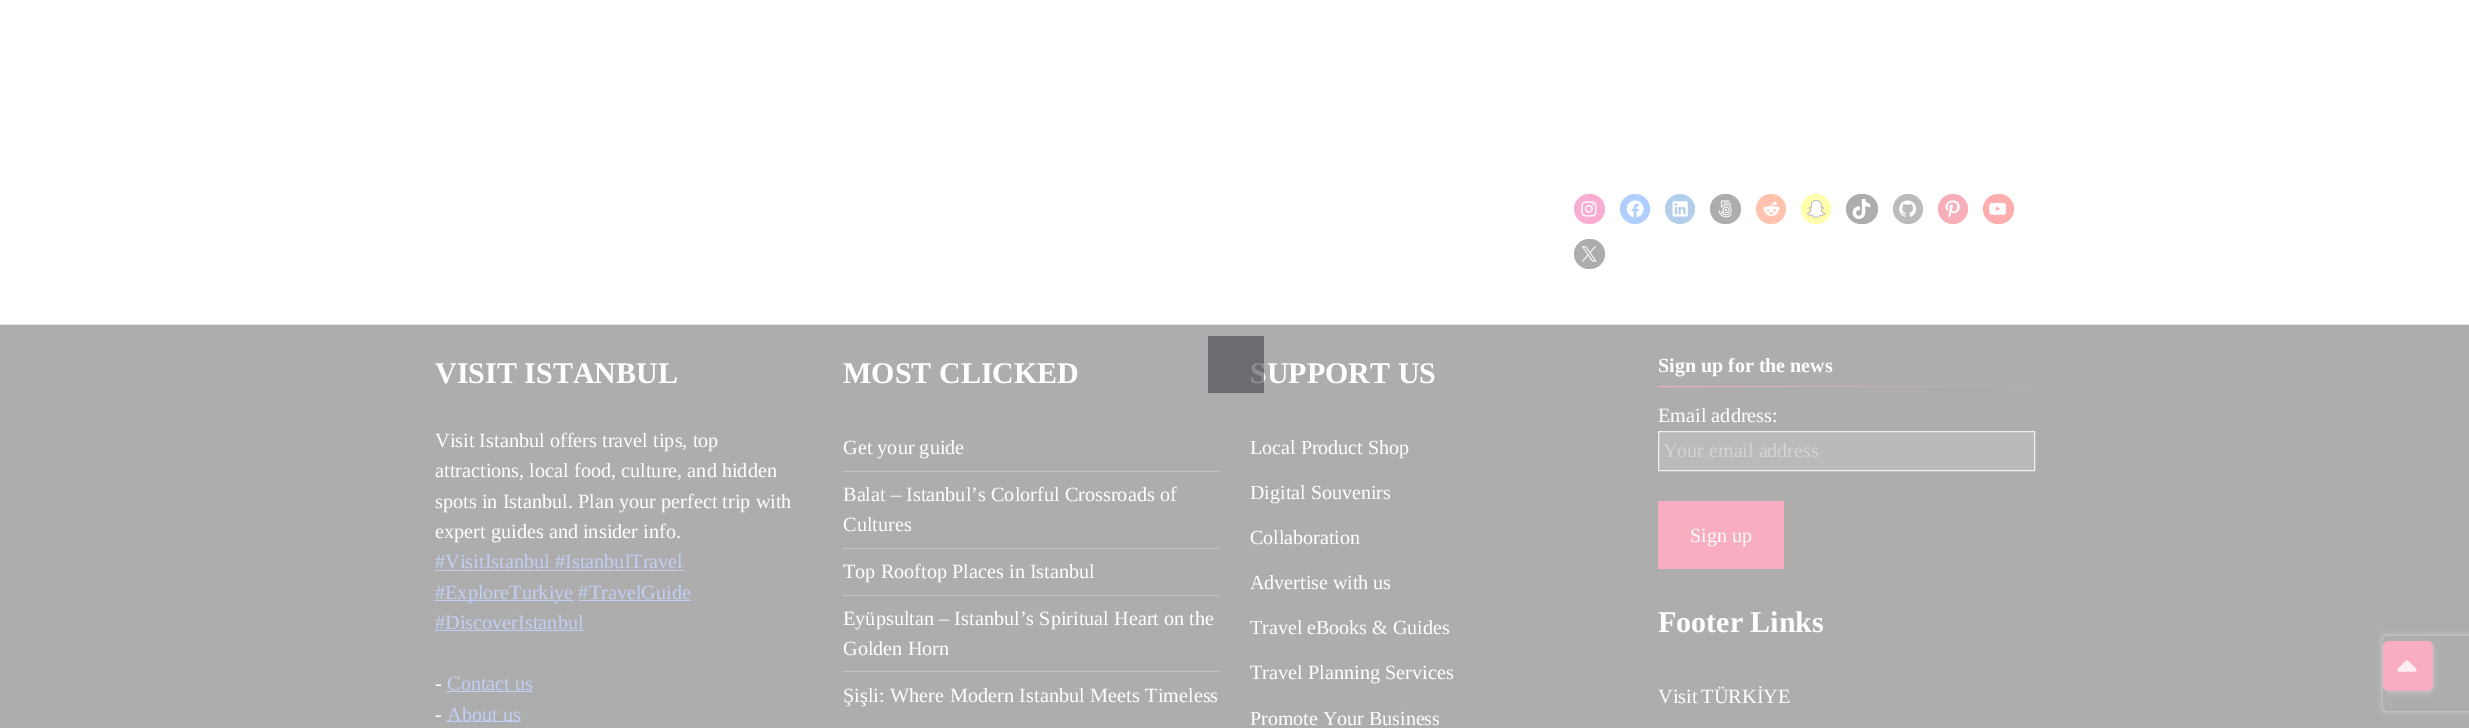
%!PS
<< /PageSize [2469 728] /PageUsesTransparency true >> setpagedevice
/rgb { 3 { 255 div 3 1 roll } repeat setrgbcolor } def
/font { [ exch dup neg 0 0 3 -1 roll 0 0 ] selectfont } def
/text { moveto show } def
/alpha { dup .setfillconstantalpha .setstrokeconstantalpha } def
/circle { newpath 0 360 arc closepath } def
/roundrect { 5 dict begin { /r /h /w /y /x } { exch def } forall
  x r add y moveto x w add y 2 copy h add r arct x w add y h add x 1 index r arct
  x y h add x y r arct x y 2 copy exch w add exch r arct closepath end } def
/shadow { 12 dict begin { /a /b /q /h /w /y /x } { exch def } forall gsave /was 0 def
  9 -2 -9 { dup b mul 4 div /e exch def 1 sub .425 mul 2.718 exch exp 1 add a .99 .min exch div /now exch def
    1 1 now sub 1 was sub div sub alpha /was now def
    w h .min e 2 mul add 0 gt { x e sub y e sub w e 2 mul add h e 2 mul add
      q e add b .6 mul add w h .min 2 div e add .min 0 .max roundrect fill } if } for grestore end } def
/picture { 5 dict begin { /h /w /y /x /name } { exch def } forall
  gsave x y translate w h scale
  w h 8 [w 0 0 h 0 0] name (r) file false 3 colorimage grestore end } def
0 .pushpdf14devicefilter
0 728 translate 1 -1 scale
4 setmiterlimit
255 255 255 rgb
0 0 2469 728 rectfill
250 173 211 rgb
1574 194 31 30 15 roundrect fill
(img_01.rgb) 1581 201 16 16 picture
176 206 255 rgb
1635 209 15 circle fill
(img_02.rgb) 1626 200 18 18 picture
178 206 235 rgb
1680 209 15 circle fill
(img_03.rgb) 1672 201 16 16 picture
173 173 173 rgb
1710 194 31 30 15 roundrect fill
(img_04.rgb) 1718 200 14 18 picture
255 195 173 rgb
1771 209 15 circle fill
(img_05.rgb) 1763 201 17 15 picture
255 254 173 rgb
1816 209 15 circle fill
(img_06.rgb) 1806 200 20 18 picture
173 173 173 rgb
1846 194 32 30 15 roundrect fill
(img_07.rgb) 1852 199 19 20 picture
185 187 188 rgb
1908 209 15 circle fill
(img_08.rgb) 1899 200 18 17 picture
247 174 184 rgb
1953 209 15 circle fill
(img_09.rgb) 1945 200 15 18 picture
255 173 173 rgb
1983 194 31 30 15 roundrect fill
(img_10.rgb) 1989 202 18 13 picture
173 173 173 rgb
1574 239 31 30 15 roundrect fill
(img_11.rgb) 1581 246 16 16 picture
0 325 2469 403 rectfill
227 227 225 rgb
0 324 2469 1 rectfill
194 207 245 rgb
435 570 249 1 rectfill
435 600 139 1 rectfill
579 600 112 1 rectfill
435 630 149 1 rectfill
446 691 87 1 rectfill
446 721 75 1 rectfill
193 193 193 rgb
843 471 377 1 rectfill
843 548 377 1 rectfill
843 595 377 1 rectfill
843 671 377 1 rectfill
gsave 1658 386 moveto 377 0 rlineto 0 1 rlineto -377 0 rlineto closepath clip newpath
<< /ShadingType 2 /ColorSpace /DeviceRGB /Coords [1845 373 1847 401] /Extend [true true] /Function << /FunctionType 2 /Domain [0 1] /C0 [0.973 0.678 0.757] /C1 [0.678 0.678 0.678] /N 1 >> >> shfill grestore
186 186 186 rgb
1658.5 431.5 moveto 376 0 rlineto 0 39 rlineto -376 0 rlineto closepath gsave fill grestore
239 239 239 rgb
stroke
248 173 193 rgb
1658 501 126 68 rectfill
220 220 220 rgb
2384 643 50 50 6 2.5 0.38 shadow
gsave
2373 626 moveto 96 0 rlineto 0 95 rlineto -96 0 rlineto closepath 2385.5 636 moveto 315 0 rlineto 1.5 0 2.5 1 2.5 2.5 rcurveto 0 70 rlineto 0 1.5 -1 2.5 -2.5 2.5 rcurveto -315 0 rlineto -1.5 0 -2.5 -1 -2.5 -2.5 rcurveto 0 -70 rlineto 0 -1.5 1 -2.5 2.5 -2.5 rcurveto closepath eoclip newpath
214 214 214 rgb
2383 636 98 75 2.5 3 1 shadow
grestore
248 173 193 rgb
2383 641 50 50 6 roundrect fill
(img_12.rgb) 2397 660 20 12 picture
/LiberationSerif-Bold 30 font
255 255 255 rgb
(VISIT ISTANBUL) 435 383 text
/LiberationSerif-Regular 20.25 font
(Visit Istanbul offers travel tips, top) 435 447 text
(attractions, local food, culture, and hidden) 435 477 text
(spots in Istanbul. Plan your perfect trip with) 435 508 text
(expert guides and insider info.) 435 538 text
194 207 245 rgb
(#VisitIstanbul #IstanbulTravel) 435 568 text
(#ExploreTurkiye #TravelGuide) 435 599 text
(#DiscoverIstanbul) 435 629 text
255 255 255 rgb
(-) 435 690 text
194 207 245 rgb
(Contact us) 447 690 text
255 255 255 rgb
(-) 435 721 text
194 207 245 rgb
(About us) 447 721 text
/LiberationSerif-Bold 30 font
255 255 255 rgb
(MOST CLICKED) 843 383 text
/LiberationSerif-Regular 20.25 font
(Get your guide) 843 454 text
(Balat – Istanbul’s Colorful Crossroads of) 843 501 text
(Cultures) 843 531 text
(Top Rooftop Places in Istanbul) 843 578 text
(Eyüpsultan – Istanbul’s Spiritual Heart on the) 843 625 text
(Golden Horn) 843 655 text
843 702 moveto 0.5 0 32 (Şişli: Where Modern Istanbul Meets Timeless) widthshow
/LiberationSerif-Bold 30 font
(SUPPORT US) 1250 383 text
0.25 alpha
57 62 70 rgb
1208 336 56 57 rectfill
1208 336 56 57 rectfill
1208 336 56 57 rectfill
/LiberationSerif-Regular 20 font
1 alpha
255 255 255 rgb
(Local Product Shop) 1250 454 text
(Digital Souvenirs) 1250 499 text
(Collaboration) 1250 544 text
(Advertise with us) 1250 589 text
(Travel eBooks & Guides) 1250 634 text
/LiberationSerif-Regular 20.25 font
(Travel Planning Services) 1250 679 text
/LiberationSerif-Regular 20 font
(Promote Your Business) 1250 725 text
/LiberationSerif-Bold 20 font
(Sign up for the news) 1658 372 text
/LiberationSerif-Regular 20.25 font
(Email address:) 1658 422 text
/LiberationSerif-Regular 20 font
211 211 211 rgb
(Your email address) 1663 457 text
255 255 255 rgb
(Sign up) 1690 542 text
/LiberationSerif-Bold 30 font
(Footer Links) 1658 632 text
/LiberationSerif-Regular 20.25 font
1658 703 moveto -1 0 32 (Visit TÜRKİYE) widthshow
.poppdf14devicefilter showpage
